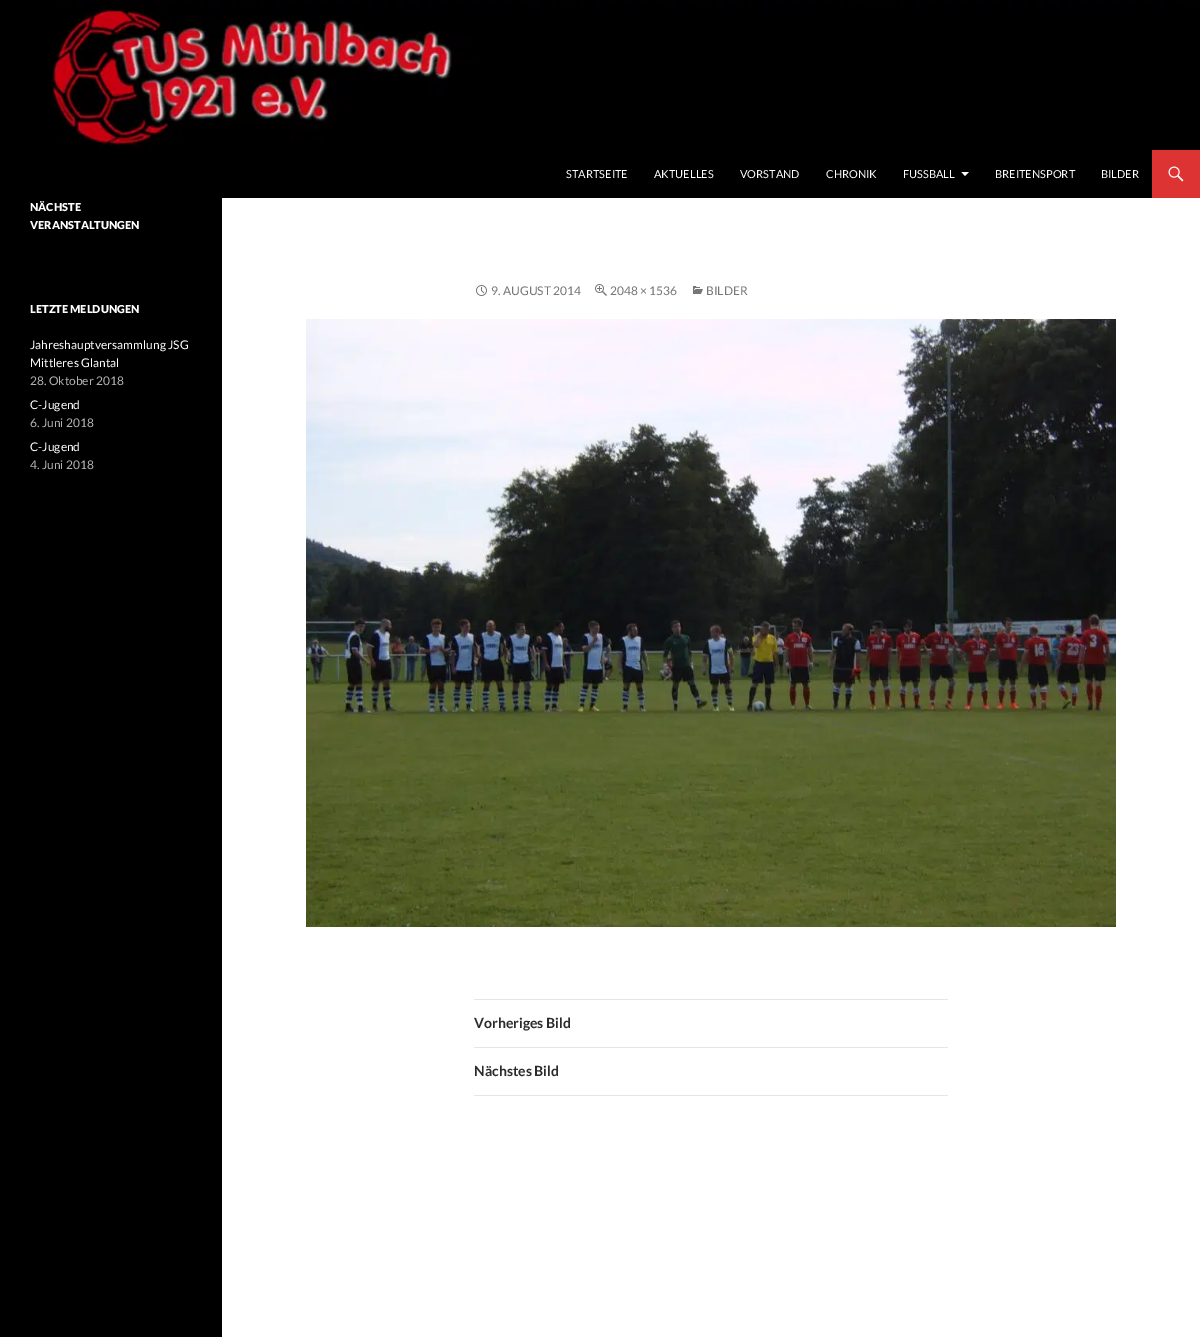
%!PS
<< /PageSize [1200 1337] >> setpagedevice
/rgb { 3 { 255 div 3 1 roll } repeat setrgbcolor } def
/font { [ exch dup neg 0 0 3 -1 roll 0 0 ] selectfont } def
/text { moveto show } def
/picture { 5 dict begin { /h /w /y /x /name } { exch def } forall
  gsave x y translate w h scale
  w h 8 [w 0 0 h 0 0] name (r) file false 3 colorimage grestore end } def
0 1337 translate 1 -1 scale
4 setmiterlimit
255 255 255 rgb
0 0 1200 1337 rectfill
0 0 0 rgb
0 0 222 1337 rectfill
(img_01.rgb) 52 0 1148 150 picture
222 150 930 48 rectfill
255 255 255 rgb
961.5 172 moveto 3.5 4 rlineto 4 -4 rlineto closepath fill
221 51 51 rgb
1152 150 48 48 rectfill
(img_02.rgb) 1168 166 16 16 picture
(img_03.rgb) 476 285 11 11 picture
(img_04.rgb) 595 284 12 12 picture
(img_05.rgb) 693 286 10 8 picture
(img_06.rgb) 306 319 810 608 picture
230 230 230 rgb
474 999 474 1 rectfill
474 1047 474 1 rectfill
474 1095 474 1 rectfill
/Lato-Regular 11 font
255 255 255 rgb
(STARTSEITE) 566 178 text
(AKTUELLES) 654 178 text
(VORSTAND) 740 178 text
(CHRONIK) 826 178 text
(FUSSBALL) 903 178 text
(BREITENSPORT) 995 178 text
(BILDER) 1101 178 text
/Lato-Black 11 font
(NÄCHSTE) 30 211 text
(VERANSTALTUNGEN) 30 229 text
(LETZTE MELDUNGEN) 30 313 text
/Lato-Regular 12 font
(Jahreshauptversammlung JSG) 30 349 text
(Mittleres Glantal) 30 367 text
179 179 179 rgb
(28. Oktober 2018) 30 385 text
255 255 255 rgb
(C-Jugend) 30 409 text
179 179 179 rgb
(6. Juni 2018) 30 427 text
255 255 255 rgb
(C-Jugend) 30 451 text
179 179 179 rgb
(4. Juni 2018) 30 469 text
118 118 118 rgb
(9. AUGUST 2014) 491 295 text
(2048 × 1536) 610 295 text
(BILDER) 706 295 text
/Lato-Bold 14 font
43 43 43 rgb
(Vorheriges Bild) 474 1028 text
(Nächstes Bild) 474 1076 text
showpage
